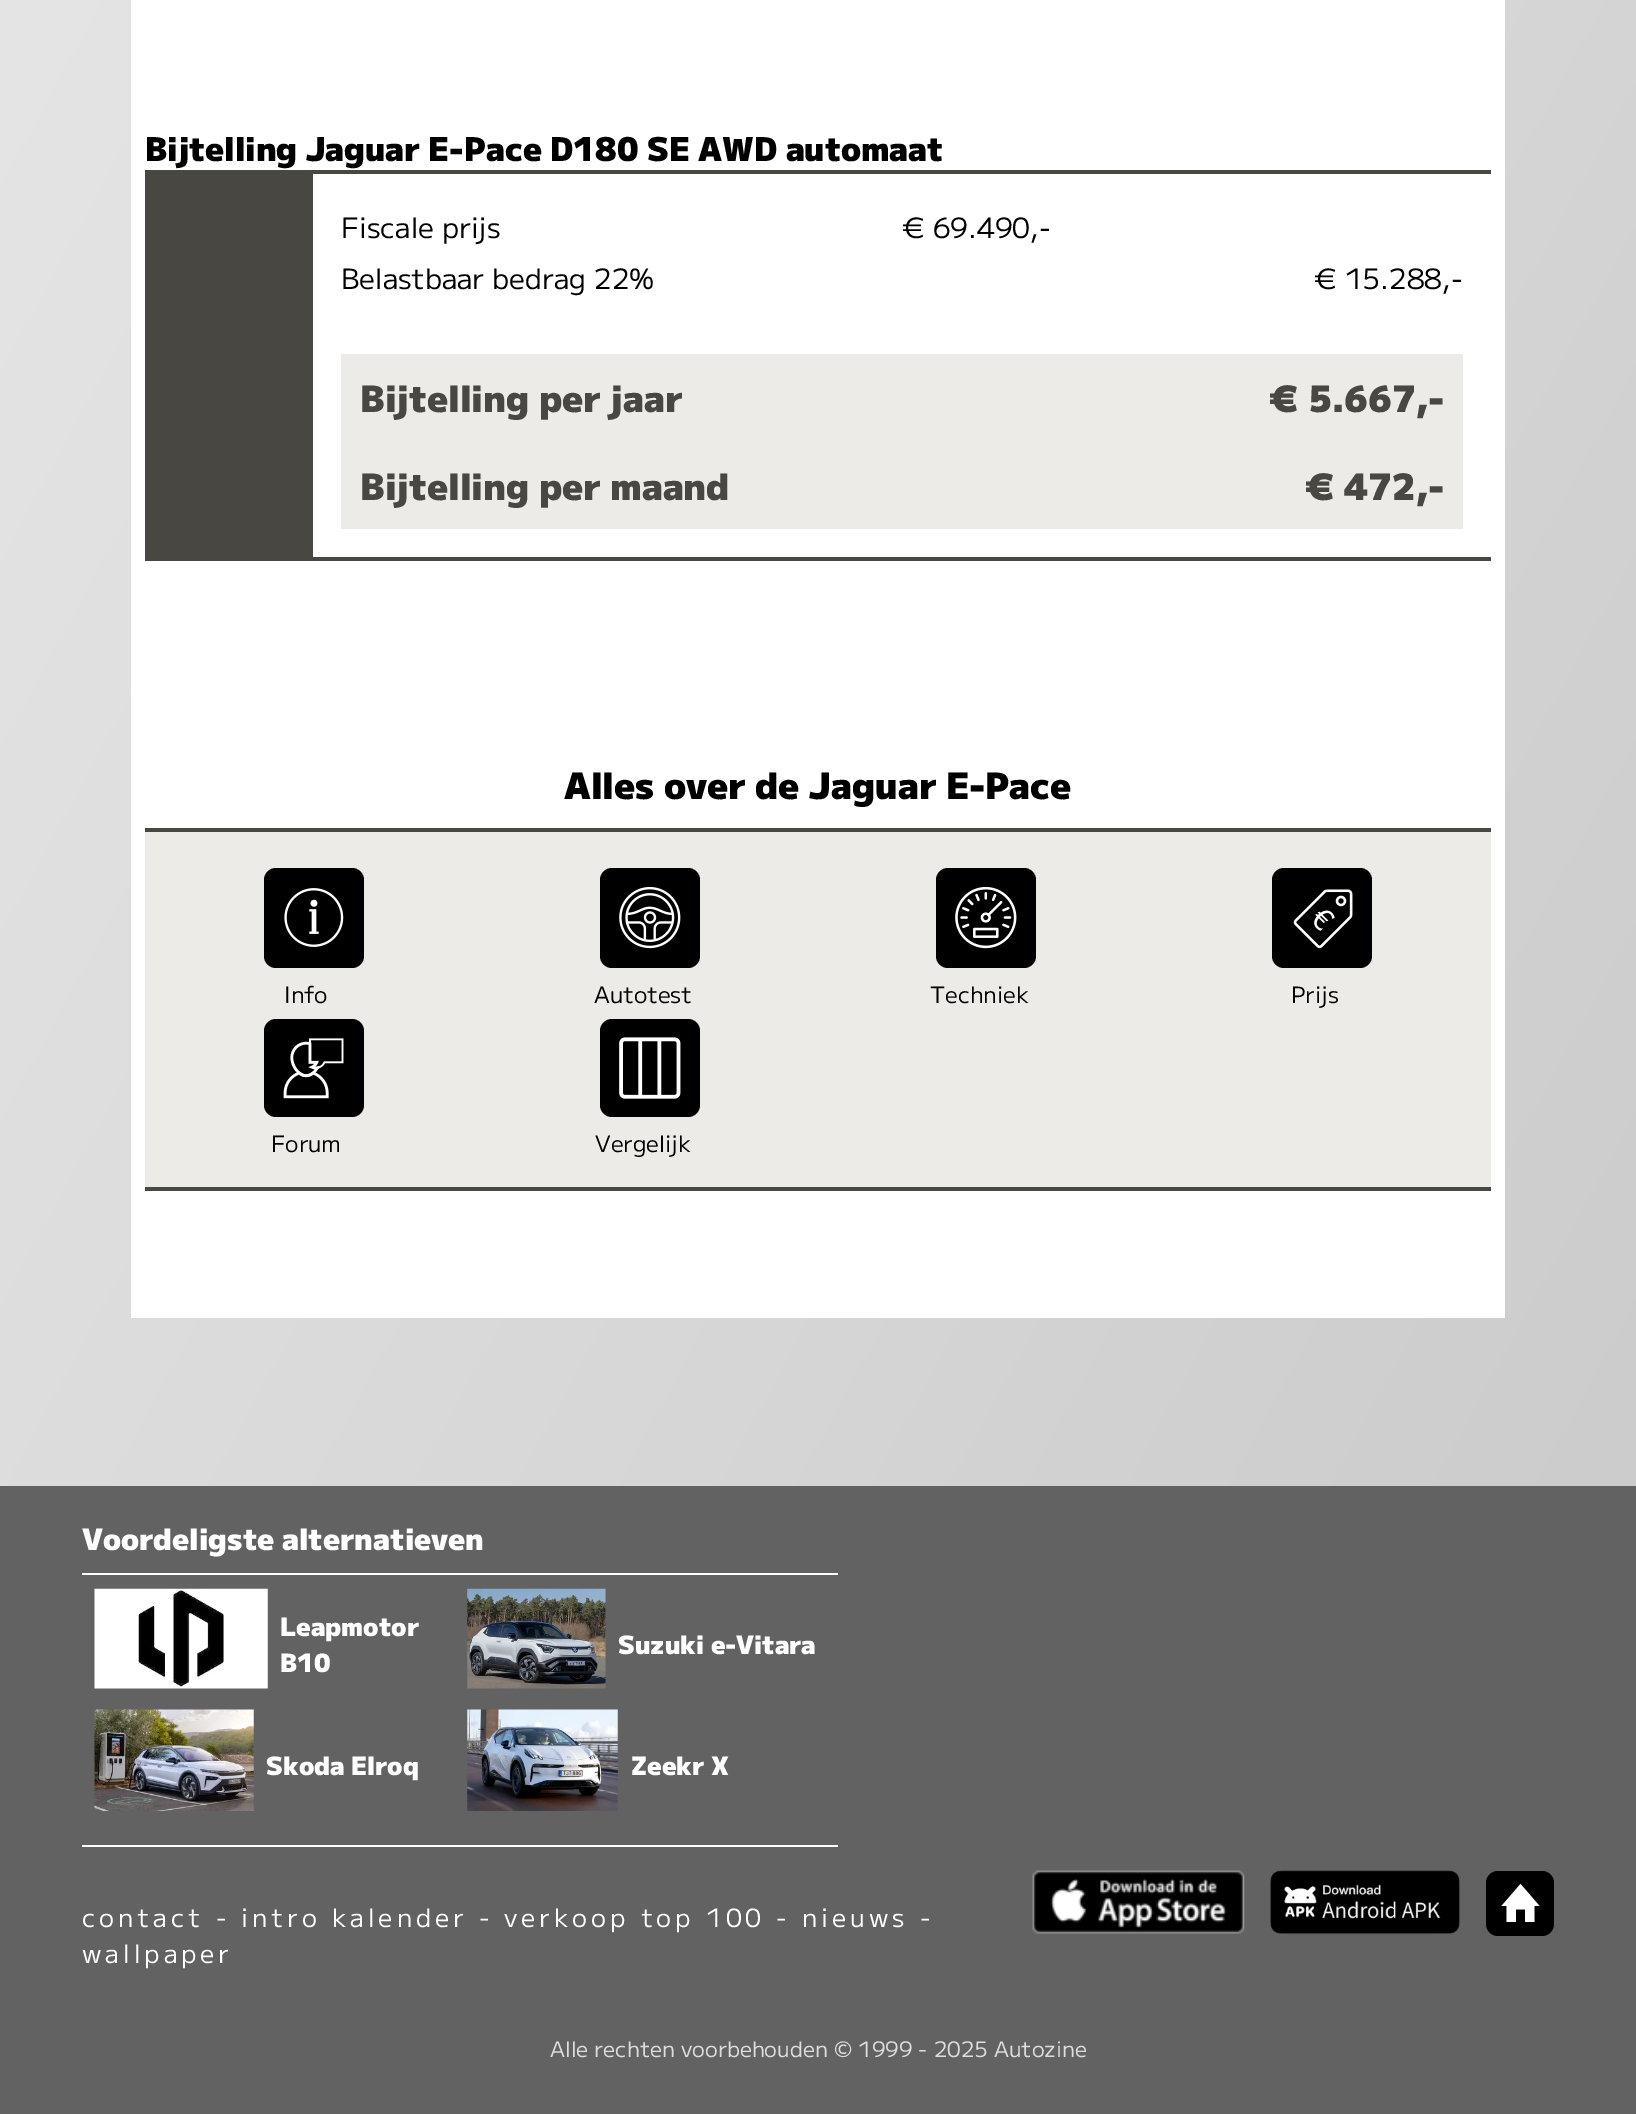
%!PS
<< /PageSize [1636 2114] >> setpagedevice
/rgb { 3 { 255 div 3 1 roll } repeat setrgbcolor } def
/font { [ exch dup neg 0 0 3 -1 roll 0 0 ] selectfont } def
/text { moveto show } def
/roundrect { 5 dict begin { /r /h /w /y /x } { exch def } forall
  x r add y moveto x w add y 2 copy h add r arct x w add y h add x 1 index r arct
  x y h add x y r arct x y 2 copy exch w add exch r arct closepath end } def
/picture { 5 dict begin { /h /w /y /x /name } { exch def } forall
  gsave x y translate w h scale
  w h 8 [w 0 0 h 0 0] name (r) file false 3 colorimage grestore end } def
0 2114 translate 1 -1 scale
4 setmiterlimit
255 255 255 rgb
0 0 1636 2114 rectfill
gsave 0 0 moveto 1636 0 rlineto 0 1486 rlineto -1636 0 rlineto closepath clip newpath
<< /ShadingType 2 /ColorSpace /DeviceRGB /Coords [-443 -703 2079 673] /Extend [true true] /Function << /FunctionType 2 /Domain [0 1] /C0 [0.933 0.933 0.933] /C1 [0.8 0.8 0.8] /N 1 >> >> shfill grestore
131 0 1374 1318 rectfill
72 71 66 rgb
313 170 1178 4 rectfill
145 557 1346 4 rectfill
145 170 168 387 rectfill
237 235 231 rgb
341 354 1122 87 rectfill
341 441 1122 88 rectfill
145 832 1346 355 rectfill
72 71 66 rgb
145 828 1346 4 rectfill
145 1187 1346 4 rectfill
0 0 0 rgb
264 868 100 100 12 roundrect fill
(img_01.rgb) 284 888 60 59 picture
600 868 100 100 12 roundrect fill
(img_02.rgb) 619 886 62 63 picture
936 868 100 100 12 roundrect fill
(img_03.rgb) 955 886 62 63 picture
1272 868 100 100 12 roundrect fill
(img_04.rgb) 1293 889 60 60 picture
264 1019 100 98 12 roundrect fill
(img_05.rgb) 283 1038 61 61 picture
600 1019 100 98 12 roundrect fill
(img_06.rgb) 619 1037 62 62 picture
98 98 98 rgb
0 1486 1636 628 rectfill
255 255 255 rgb
82 1573 756 2 rectfill
82 1845 756 2 rectfill
(img_07.rgb) 94 1588 174 101 picture
(img_08.rgb) 467 1588 139 101 picture
(img_09.rgb) 94 1709 160 102 picture
(img_10.rgb) 467 1709 151 102 picture
(img_11.rgb) 1032 1870 213 64 picture
(img_12.rgb) 1270 1870 190 64 picture
0 0 0 rgb
1486 1871 68 65 12 roundrect fill
255 255 255 rgb
1539.5 1906 moveto -19 -22 rlineto -19 22 rlineto 5 0 rlineto 0 16 rlineto 9.5 0 rlineto 0 -12.5 rlineto 9 0 rlineto 0 12.5 rlineto 9.5 0 rlineto 0 -16 rlineto closepath fill
/MPLUS1-Black 32.75 font
0 0 0 rgb
(Bijtelling Jaguar E-Pace D180 SE AWD automaat) 145 161 text
/MPLUS1-Regular 28 font
(Fiscale prijs) 341 238 text
(€ 69.490,-) 902 238 text
(Belastbaar bedrag 22%) 341 289 text
(€ 15.288,-) 1314 289 text
/MPLUS1-Black 36.4 font
72 71 66 rgb
(Bijtelling per jaar) 360 412 text
(€ 5.667,-) 1269 412 text
(Bijtelling per maand) 360 500 text
(€ 472,-) 1305 500 text
0 0 0 rgb
(Alles over de Jaguar E-Pace) 564 799 text
/MPLUS1-Regular 22.5 font
(Info) 284 1003 text
(Autotest) 594 1003 text
(Techniek) 930 1003 text
(Prijs) 1291 1003 text
(Forum) 271 1152 text
(Vergelijk) 595 1152 text
/MPLUS1-Black 29.5 font
255 255 255 rgb
(Voordeligste alternatieven) 82 1550 text
/MPLUS1-Black 25.2 font
(Leapmotor) 280 1636 text
(B10) 280 1672 text
(Suzuki e-Vitara) 618 1654 text
(Skoda Elroq) 266 1775 text
(Zeekr X) 631 1775 text
/MPLUS1-Regular 25.2 font
82 1927 moveto 3.93 0 (contact - intro kalender - verkoop top 100 - nieuws -) ashow
82 1963 moveto 3.93 0 (wallpaper) ashow
/MPLUS1-Regular 21.4 font
222 222 222 rgb
(Alle rechten voorbehouden © 1999 - 2025 Autozine) 550 2057 text
showpage
